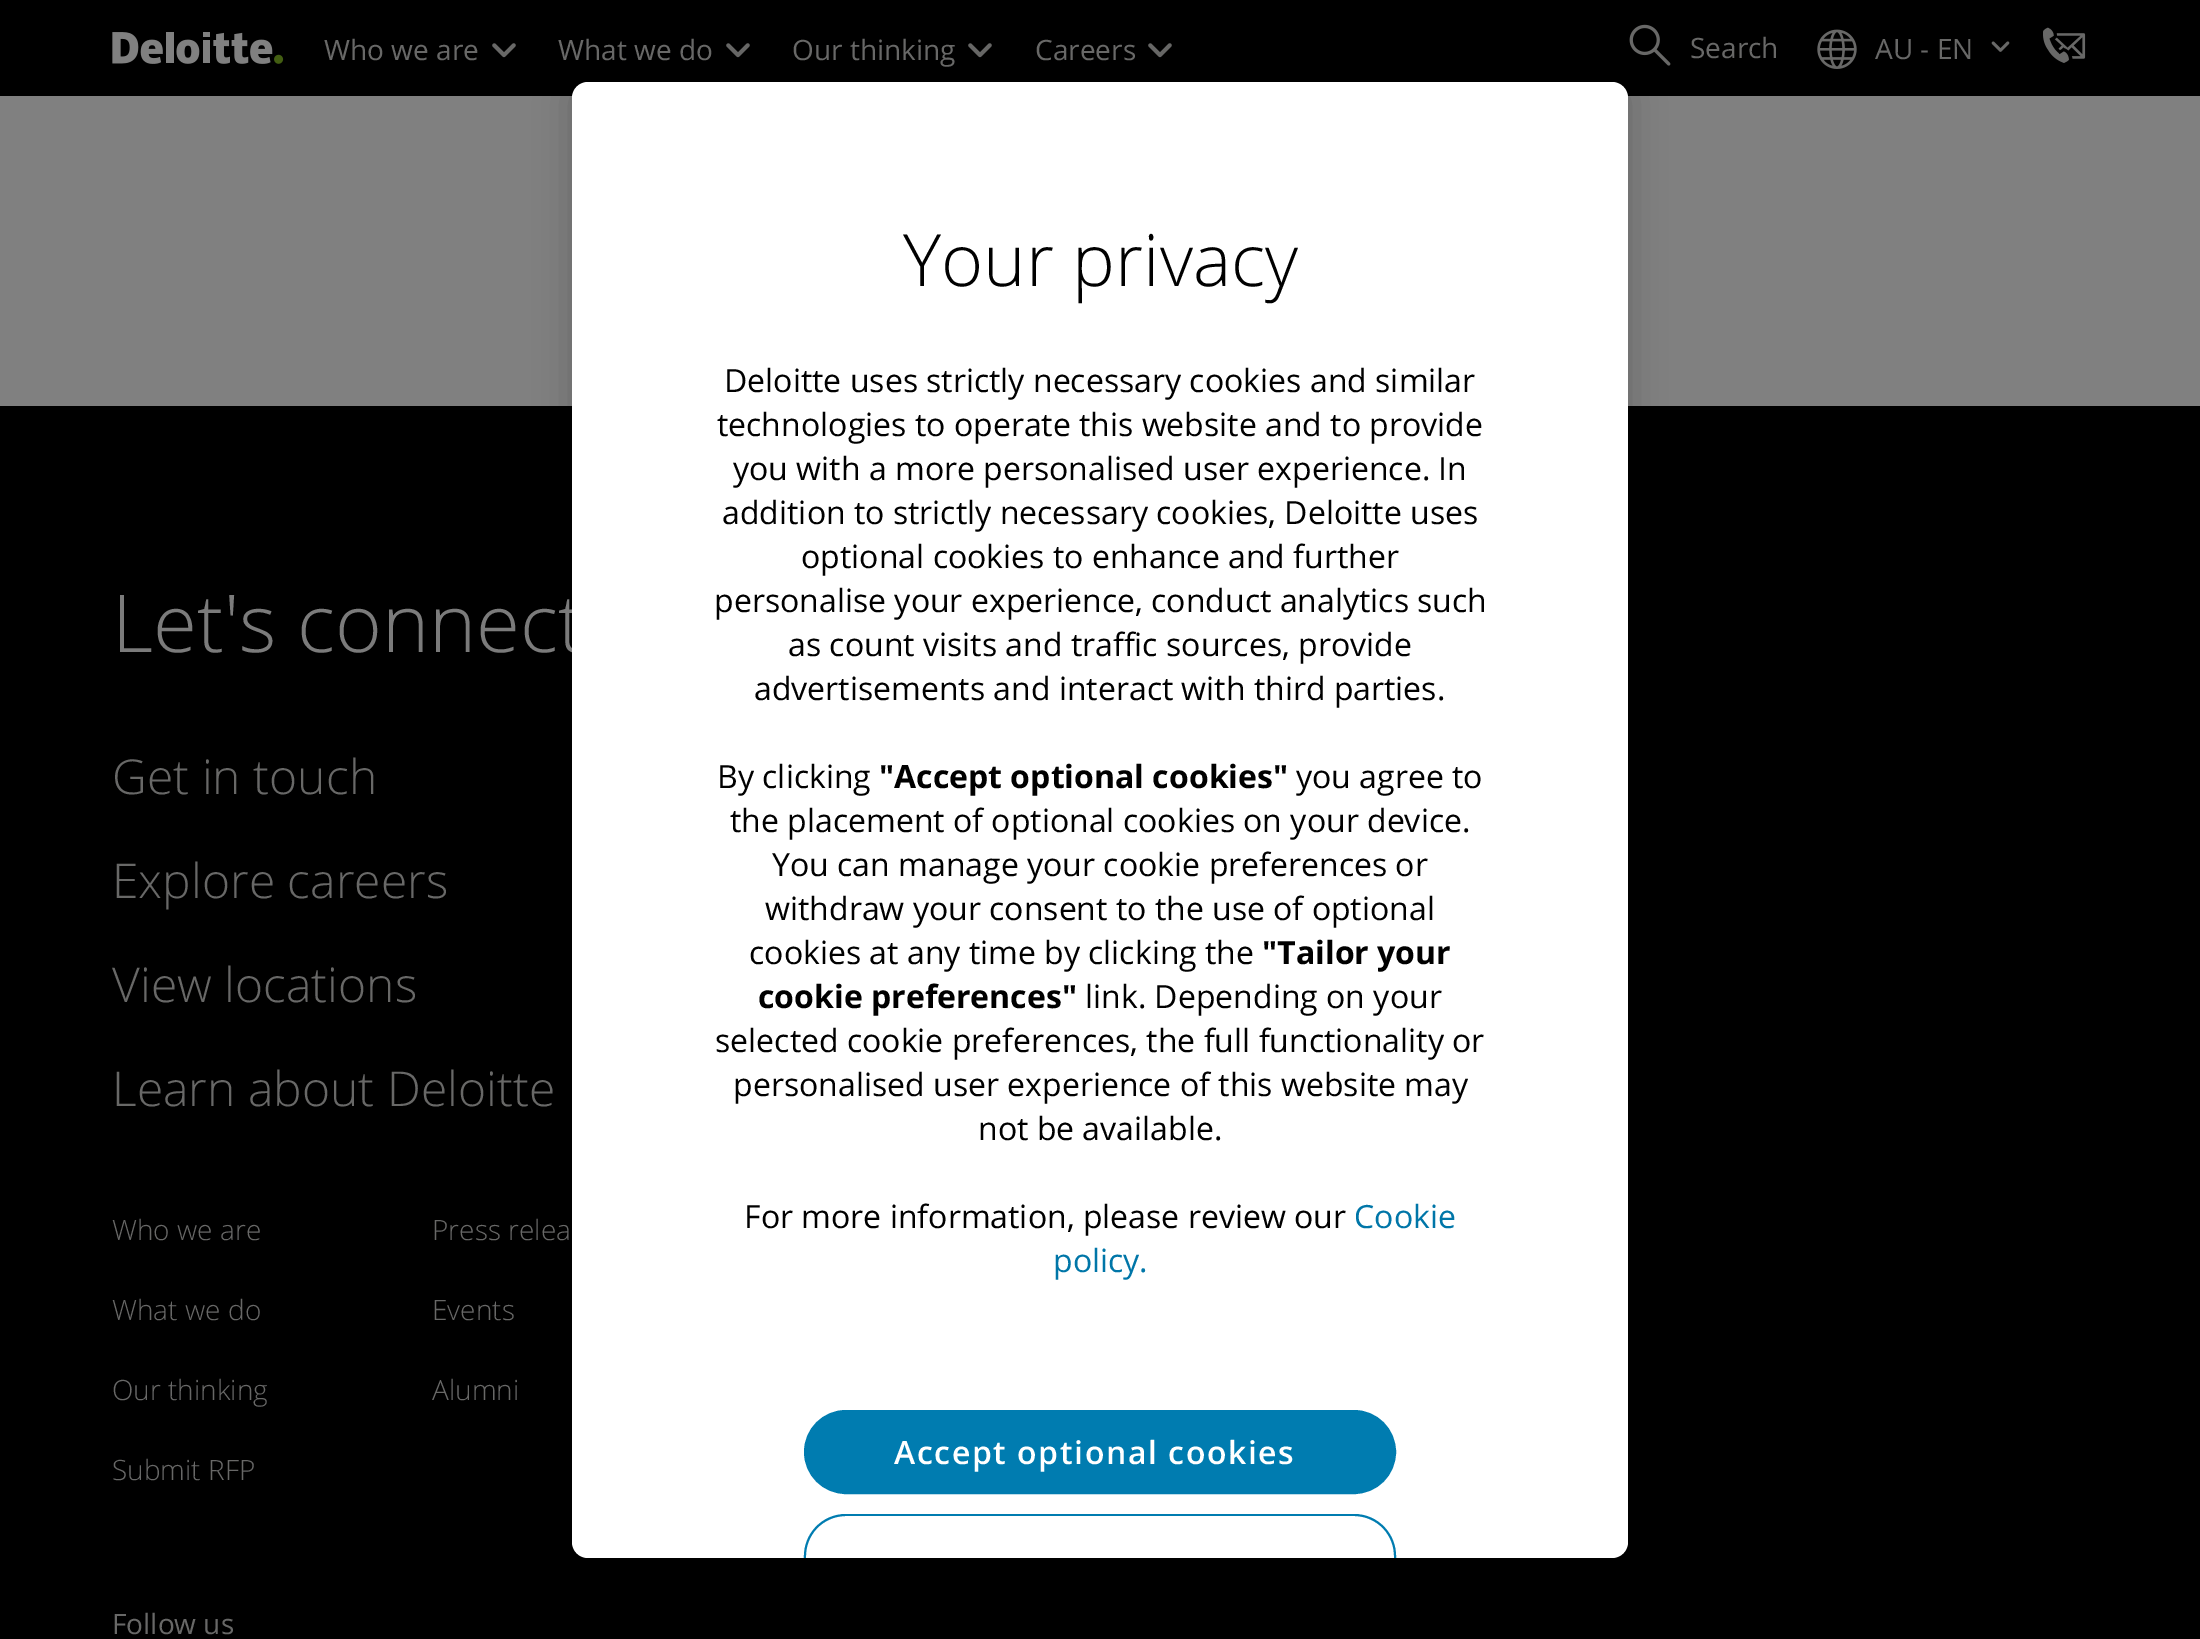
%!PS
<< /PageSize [2200 1639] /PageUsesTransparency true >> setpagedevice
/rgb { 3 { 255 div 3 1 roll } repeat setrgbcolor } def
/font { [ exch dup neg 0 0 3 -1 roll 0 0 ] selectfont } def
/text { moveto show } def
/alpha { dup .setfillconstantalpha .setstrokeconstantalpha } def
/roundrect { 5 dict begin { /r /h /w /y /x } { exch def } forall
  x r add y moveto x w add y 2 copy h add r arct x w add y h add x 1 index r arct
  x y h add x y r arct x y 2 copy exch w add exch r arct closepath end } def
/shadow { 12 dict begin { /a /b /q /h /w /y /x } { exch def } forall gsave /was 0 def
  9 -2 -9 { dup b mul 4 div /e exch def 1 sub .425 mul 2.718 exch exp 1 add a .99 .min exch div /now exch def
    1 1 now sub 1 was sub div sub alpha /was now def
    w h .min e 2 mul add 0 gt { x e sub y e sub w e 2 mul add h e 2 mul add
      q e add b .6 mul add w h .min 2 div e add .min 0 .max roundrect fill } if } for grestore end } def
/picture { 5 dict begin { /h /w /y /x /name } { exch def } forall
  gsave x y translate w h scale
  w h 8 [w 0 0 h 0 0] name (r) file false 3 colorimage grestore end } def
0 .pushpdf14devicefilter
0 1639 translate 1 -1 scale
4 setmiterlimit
128 128 128 rgb
0 0 2200 1639 rectfill
0 0 0 rgb
0 0 2200 96 rectfill
(img_01.rgb) 112 32 172 32 picture
(img_02.rgb) 492 43 24 15 picture
(img_02.rgb) 726 43 24 15 picture
(img_02.rgb) 968 43 24 15 picture
(img_02.rgb) 1148 43 24 15 picture
(img_03.rgb) 1629 24 42 42 picture
(img_04.rgb) 1817 29 40 40 picture
(img_05.rgb) 1991 41 19 11 picture
(img_06.rgb) 2043 27 43 36 picture
0 406 2200 1233 rectfill
572 82 1056 1476 16 18 0.2 shadow
/OpenSans-Regular 28 font
104 104 103 rgb
(Who we are) 324 60 text
(What we do) 558 60 text
(Our thinking) 792 60 text
(Careers) 1035 60 text
(Search) 1690 58 text
(AU - EN) 1875 59 text
/OpenSans-Light 80 font
123 123 123 rgb
(Let's connect) 112 652 text
/OpenSans-Light 48 font
104 104 103 rgb
(Get in touch) 112 794 text
(Explore careers) 112 898 text
(View locations) 112 1002 text
(Learn about Deloitte) 112 1106 text
/OpenSans-Light 28 font
(Who we are) 112 1240 text
(What we do) 112 1320 text
(Our thinking) 112 1400 text
(Submit RFP) 112 1480 text
(Press relea) 432 1240 text
(Events) 432 1320 text
(Alumni) 432 1400 text
/OpenSans-Regular 28 font
(Follow us) 112 1634 text
255 255 255 rgb
572 82 1056 1476 16 roundrect fill
/OpenSans-Light 72 font
0 0 0 rgb
(Your privacy) 903 286 text
/OpenSans-Regular 32 font
(Deloitte uses strictly necessary cookies and similar) 724 392 text
(technologies to operate this website and to provide) 717 436 text
(you with a more personalised user experience. In) 733 480 text
(addition to strictly necessary cookies, Deloitte uses) 722 524 text
(optional cookies to enhance and further) 801 568 text
(personalise your experience, conduct analytics such) 714 612 text
(as count visits and traffic sources, provide) 788 656 text
(advertisements and interact with third parties.) 754 700 text
(By clicking) 717 788 text
/OpenSans-Bold 32 font
("Accept optional cookies") 879 788 text
/OpenSans-Regular 32 font
(you agree to) 1296 788 text
(the placement of optional cookies on your device.) 730 832 text
(You can manage your cookie preferences or) 772 876 text
(withdraw your consent to the use of optional) 765 920 text
(cookies at any time by clicking the) 749 964 text
/OpenSans-Bold 32 font
("Tailor your) 1262 964 text
(cookie preferences") 758 1008 text
/OpenSans-Regular 32 font
(link. Depending on your) 1085 1008 text
(selected cookie preferences, the full functionality or) 715 1052 text
(personalised user experience of this website may) 733 1096 text
(not be available.) 978 1140 text
(For more information, please review our) 744 1228 text
0 118 168 rgb
(Cookie) 1354 1228 text
(policy.) 1053 1272 text
0 124 176 rgb
805 1411 590 82 41 roundrect gsave fill grestore
2 setlinewidth
stroke
/OpenSans-SemiBold 32 font
255 255 255 rgb
894 1464 moveto 1.6 0 (Accept optional cookies) ashow
0 124 176 rgb
846 1514 moveto -24 0 -43 20 -42 44 rcurveto 2 0 rlineto -1 -23 17 -42 40 -42 rcurveto 508 0 rlineto 23 0 41 19 40 42 rcurveto 2 0 rlineto 1 -24 -18 -44 -42 -44 rcurveto closepath fill
.poppdf14devicefilter showpage
